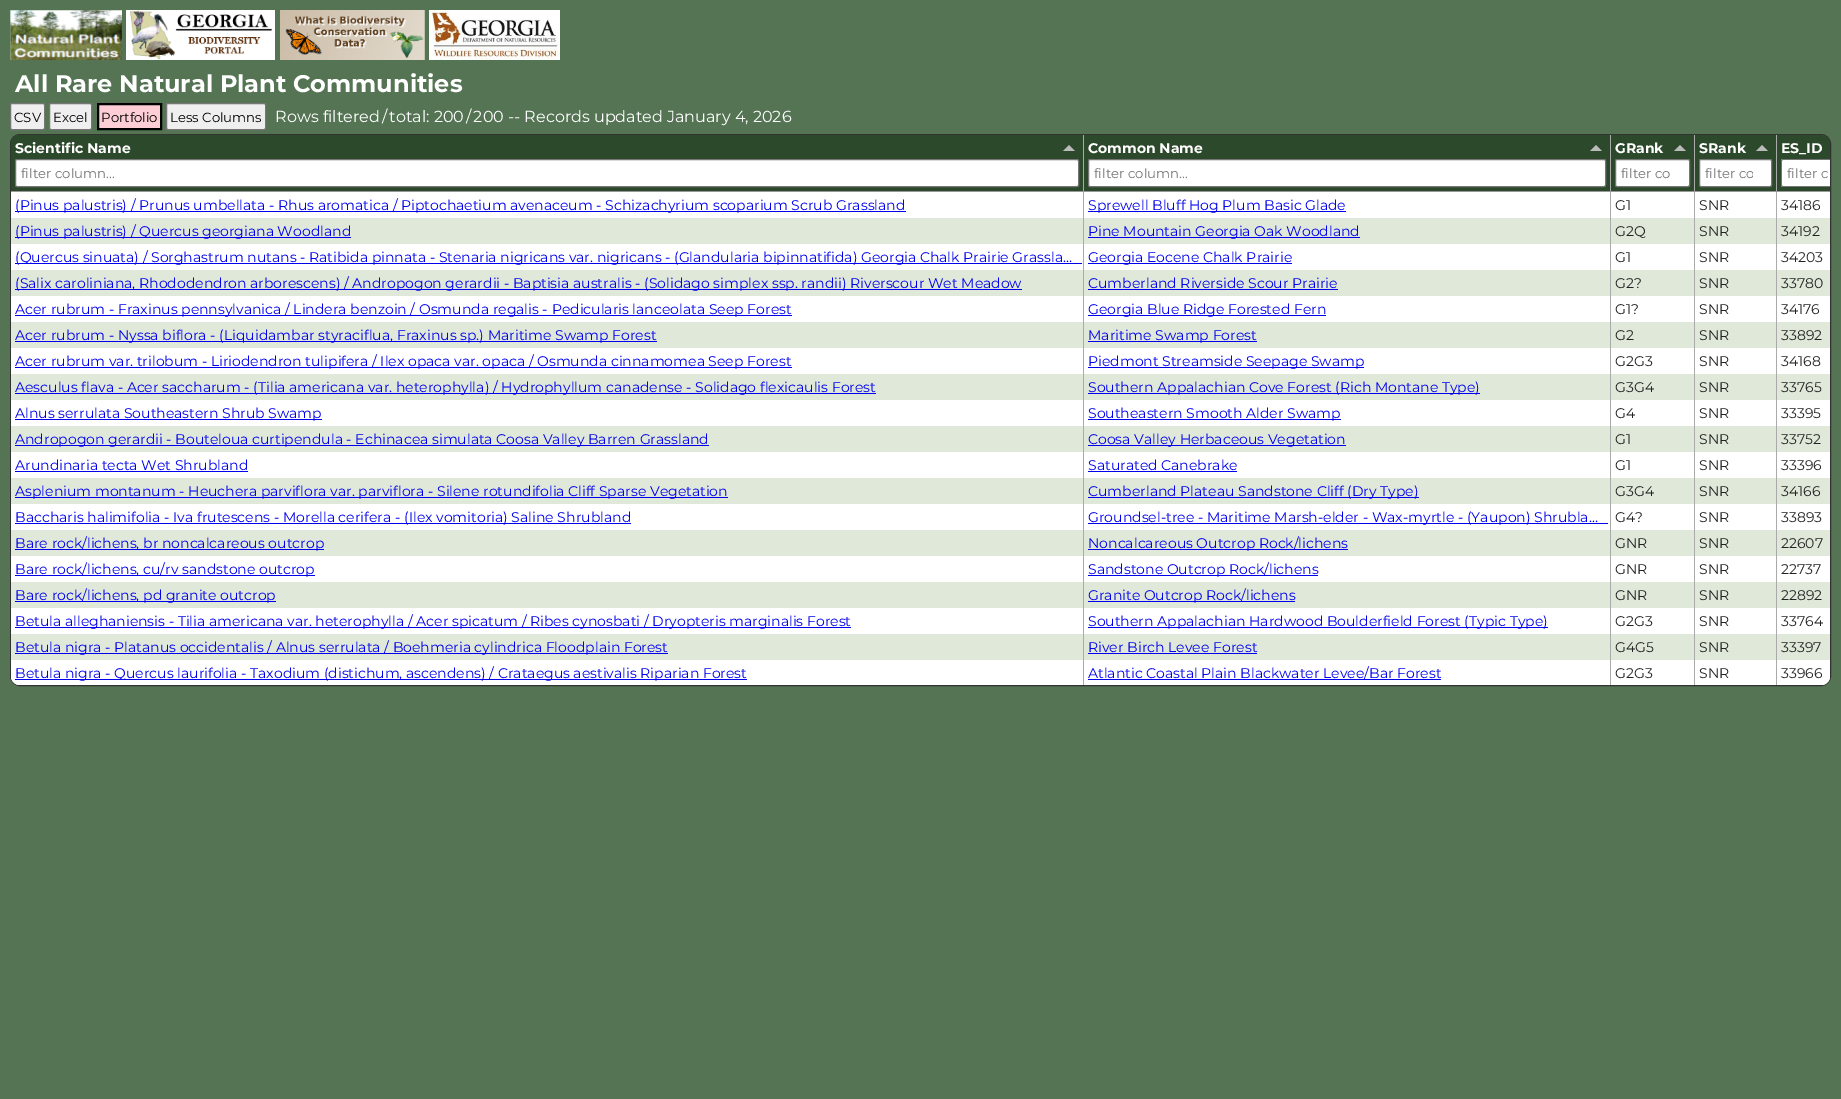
%!PS
<< /PageSize [1841 1099] >> setpagedevice
/rgb { 3 { 255 div 3 1 roll } repeat setrgbcolor } def
/font { [ exch dup neg 0 0 3 -1 roll 0 0 ] selectfont } def
/text { moveto show } def
/roundrect { 5 dict begin { /r /h /w /y /x } { exch def } forall
  x r add y moveto x w add y 2 copy h add r arct x w add y h add x 1 index r arct
  x y h add x y r arct x y 2 copy exch w add exch r arct closepath end } def
/picture { 5 dict begin { /h /w /y /x /name } { exch def } forall
  gsave x y translate w h scale
  w h 8 [w 0 0 h 0 0] name (r) file false 3 colorimage grestore end } def
0 1099 translate 1 -1 scale
4 setmiterlimit
84 116 83 rgb
0 0 1841 1099 rectfill
(img_01.rgb) 10 10 112 50 picture
(img_02.rgb) 126 10 149 50 picture
(img_03.rgb) 280 10 145 50 picture
(img_04.rgb) 429 10 131 50 picture
239 239 239 rgb
10.5 103.5 34 26 1.5 roundrect gsave fill grestore
118 118 118 rgb
stroke
239 239 239 rgb
49.5 103.5 42 26 1.5 roundrect gsave fill grestore
118 118 118 rgb
stroke
253 206 214 rgb
98 104 moveto 63 0 rlineto 0 25 rlineto -63 0 rlineto closepath gsave fill grestore
0 0 0 rgb
2 setlinewidth
stroke
239 239 239 rgb
166.5 103.5 99 26 1.5 roundrect gsave fill grestore
118 118 118 rgb
1 setlinewidth
stroke
51 51 51 rgb
10.5 134.5 1820 551 9.5 roundrect stroke
153 153 153 rgb
11 191 1819 1 rectfill
45 73 44 rgb
20 135 moveto 1064 0 rlineto 0 56 rlineto -1073 0 rlineto 0 -47 rlineto 0 -5 4 -9 9 -9 rcurveto closepath fill
170 170 170 rgb
1083 135 1 56 rectfill
187 187 187 rgb
1075 151 moveto -12 0 rlineto 6 -6 rlineto closepath fill
255 255 255 rgb
15.5 159.5 1063 27 1.5 roundrect gsave fill grestore
118 118 118 rgb
stroke
45 73 44 rgb
1084 135 526 56 rectfill
170 170 170 rgb
1610 135 1 56 rectfill
187 187 187 rgb
1602 151 moveto -12 0 rlineto 6 -6 rlineto closepath fill
255 255 255 rgb
1088.5 159.5 517 27 1.5 roundrect gsave fill grestore
118 118 118 rgb
stroke
45 73 44 rgb
1611 135 83 56 rectfill
170 170 170 rgb
1694 135 1 56 rectfill
187 187 187 rgb
1686 151 moveto -12 0 rlineto 6 -6 rlineto closepath fill
255 255 255 rgb
1615.5 159.5 74 27 1.5 roundrect gsave fill grestore
118 118 118 rgb
stroke
45 73 44 rgb
1695 135 81 56 rectfill
170 170 170 rgb
1776 135 1 56 rectfill
187 187 187 rgb
1768 151 moveto -12 0 rlineto 6 -6 rlineto closepath fill
255 255 255 rgb
1699.5 159.5 72 27 1.5 roundrect gsave fill grestore
118 118 118 rgb
stroke
45 73 44 rgb
1777 135 moveto 44 0 rlineto 5 0 9 4 9 9 rcurveto 0 47 rlineto -53 0 rlineto closepath fill
255 255 255 rgb
1783 159 moveto 47 0 rlineto 0 28 rlineto -47 0 rlineto -1 0 -2 -1 -2 -2 rcurveto 0 -24 rlineto 0 -1 1 -2 2 -2 rcurveto closepath fill
118 118 118 rgb
1783 159 moveto -1 0 -2 1 -2 2 rcurveto 0 24 rlineto 0 1 1 2 2 2 rcurveto 47 0 rlineto 0 -1 rlineto -47 0 rlineto -1 0 -1 0 -1 -1 rcurveto 0 -24 rlineto 0 -1 0 -1 1 -1 rcurveto 47 0 rlineto 0 -1 rlineto closepath fill
255 255 255 rgb
11 192 moveto 1819 0 rlineto 0 484 rlineto 0 5 -4 9 -9 9 rcurveto -1801 0 rlineto -5 0 -9 -4 -9 -9 rcurveto closepath fill
170 170 170 rgb
1083 192 1 26 rectfill
0 0 238 rgb
15 211 891 1 rectfill
170 170 170 rgb
1610 192 1 26 rectfill
0 0 238 rgb
1088 211 258 1 rectfill
170 170 170 rgb
1694 192 1 26 rectfill
1776 192 1 26 rectfill
223 232 217 rgb
11 218 1819 26 rectfill
170 170 170 rgb
1083 218 1 52 rectfill
0 0 238 rgb
15 237 336 1 rectfill
170 170 170 rgb
1610 218 1 52 rectfill
0 0 238 rgb
1088 237 272 1 rectfill
170 170 170 rgb
1694 218 1 52 rectfill
1776 218 1 52 rectfill
0 0 238 rgb
15 263 1067 1 rectfill
1088 263 204 1 rectfill
223 232 217 rgb
11 270 1819 26 rectfill
170 170 170 rgb
1083 270 1 52 rectfill
0 0 238 rgb
15 289 1007 1 rectfill
170 170 170 rgb
1610 270 1 52 rectfill
0 0 238 rgb
1088 289 250 1 rectfill
170 170 170 rgb
1694 270 1 52 rectfill
1776 270 1 52 rectfill
0 0 238 rgb
15 315 777 1 rectfill
1088 315 238 1 rectfill
223 232 217 rgb
11 322 1819 26 rectfill
170 170 170 rgb
1083 322 1 52 rectfill
0 0 238 rgb
15 341 642 1 rectfill
170 170 170 rgb
1610 322 1 52 rectfill
0 0 238 rgb
1088 341 169 1 rectfill
170 170 170 rgb
1694 322 1 52 rectfill
1776 322 1 52 rectfill
0 0 238 rgb
15 367 777 1 rectfill
1088 367 276 1 rectfill
223 232 217 rgb
11 374 1819 26 rectfill
170 170 170 rgb
1083 374 1 52 rectfill
0 0 238 rgb
15 393 861 1 rectfill
170 170 170 rgb
1610 374 1 52 rectfill
0 0 238 rgb
1088 393 392 1 rectfill
170 170 170 rgb
1694 374 1 52 rectfill
1776 374 1 52 rectfill
0 0 238 rgb
15 419 307 1 rectfill
1088 419 253 1 rectfill
223 232 217 rgb
11 426 1819 26 rectfill
170 170 170 rgb
1083 426 1 52 rectfill
0 0 238 rgb
15 445 694 1 rectfill
170 170 170 rgb
1610 426 1 52 rectfill
0 0 238 rgb
1088 445 258 1 rectfill
170 170 170 rgb
1694 426 1 52 rectfill
1776 426 1 52 rectfill
0 0 238 rgb
15 471 233 1 rectfill
1088 471 149 1 rectfill
223 232 217 rgb
11 478 1819 26 rectfill
170 170 170 rgb
1083 478 1 52 rectfill
0 0 238 rgb
15 497 713 1 rectfill
170 170 170 rgb
1610 478 1 52 rectfill
0 0 238 rgb
1088 497 331 1 rectfill
170 170 170 rgb
1694 478 1 52 rectfill
1776 478 1 52 rectfill
0 0 238 rgb
15 523 616 1 rectfill
1088 523 520 1 rectfill
223 232 217 rgb
11 530 1819 26 rectfill
170 170 170 rgb
1083 530 1 52 rectfill
0 0 238 rgb
15 549 309 1 rectfill
170 170 170 rgb
1610 530 1 52 rectfill
0 0 238 rgb
1088 549 260 1 rectfill
170 170 170 rgb
1694 530 1 52 rectfill
1776 530 1 52 rectfill
0 0 238 rgb
15 575 300 1 rectfill
1088 575 230 1 rectfill
223 232 217 rgb
11 582 1819 26 rectfill
170 170 170 rgb
1083 582 1 52 rectfill
0 0 238 rgb
15 601 261 1 rectfill
170 170 170 rgb
1610 582 1 52 rectfill
0 0 238 rgb
1088 601 207 1 rectfill
170 170 170 rgb
1694 582 1 52 rectfill
1776 582 1 52 rectfill
0 0 238 rgb
15 627 836 1 rectfill
1088 627 460 1 rectfill
223 232 217 rgb
11 634 1819 26 rectfill
170 170 170 rgb
1083 634 1 26 rectfill
0 0 238 rgb
15 653 653 1 rectfill
170 170 170 rgb
1610 634 1 26 rectfill
0 0 238 rgb
1088 653 169 1 rectfill
170 170 170 rgb
1694 634 1 26 rectfill
1776 634 1 26 rectfill
255 255 255 rgb
11 660 moveto 1819 0 rlineto 0 16 rlineto 0 5 -4 9 -9 9 rcurveto -1801 0 rlineto -5 0 -9 -4 -9 -9 rcurveto closepath fill
170 170 170 rgb
1083 660 1 25 rectfill
0 0 238 rgb
15 679 732 1 rectfill
170 170 170 rgb
1610 660 1 25 rectfill
0 0 238 rgb
1088 679 353 1 rectfill
170 170 170 rgb
1694 660 1 25 rectfill
1776 660 1 25 rectfill
/Montserrat-Bold 24 font
255 255 255 rgb
(All Rare Natural Plant Communities) 15 92 text
/Montserrat-Regular 13.25 font
0 0 0 rgb
(CSV) 14 122 text
(Excel) 53 122 text
(Portfolio) 101 122 text
(Less Columns) 170 122 text
/Montserrat-Regular 16 font
255 255 255 rgb
(Rows filtered / total: 200 / 200 -- Records updated January 4, 2026) 275 122 text
/Montserrat-Bold 14 font
(Scientific Name) 15 153 text
/Montserrat-Regular 13.25 font
117 117 117 rgb
(filter column...) 21 178 text
/Montserrat-Bold 14 font
255 255 255 rgb
(Common Name) 1088 153 text
/Montserrat-Regular 13.25 font
117 117 117 rgb
(filter column...) 1094 178 text
/Montserrat-Bold 14 font
255 255 255 rgb
(GRank) 1615 153 text
/Montserrat-Regular 13.25 font
117 117 117 rgb
(filter co) 1621 178 text
/Montserrat-Bold 14 font
255 255 255 rgb
(SRank) 1699 153 text
gsave
1705 165 48 16 rectclip
/Montserrat-Regular 13.25 font
117 117 117 rgb
(filter co) 1705 178 text
grestore
(ES_ID) 1781 153 text
/Montserrat-Regular 13.25 font
117 117 117 rgb
(filter c) 1787 178 text
/Montserrat-Regular 14 font
0 0 238 rgb
(\(Pinus palustris\) / Prunus umbellata - Rhus aromatica / Piptochaetium avenaceum - Schizachyrium scoparium Scrub Grassland) 15 210 text
(Sprewell Bluff Hog Plum Basic Glade) 1088 210 text
34 34 34 rgb
(G1) 1615 210 text
(SNR) 1699 210 text
(34186) 1781 210 text
0 0 238 rgb
(\(Pinus palustris\) / Quercus georgiana Woodland) 15 236 text
(Pine Mountain Georgia Oak Woodland) 1088 236 text
34 34 34 rgb
(G2Q) 1615 236 text
(SNR) 1699 236 text
(34192) 1781 236 text
0 0 238 rgb
(\(Quercus sinuata\) / Sorghastrum nutans - Ratibida pinnata - Stenaria nigricans var. nigricans - \(Glandularia bipinnatifida\) Georgia Chalk Prairie Grassla…) 15 262 text
(Georgia Eocene Chalk Prairie) 1088 262 text
34 34 34 rgb
(G1) 1615 262 text
(SNR) 1699 262 text
(34203) 1781 262 text
0 0 238 rgb
(\(Salix caroliniana, Rhododendron arborescens\) / Andropogon gerardii - Baptisia australis - \(Solidago simplex ssp. randii\) Riverscour Wet Meadow) 15 288 text
(Cumberland Riverside Scour Prairie) 1088 288 text
34 34 34 rgb
(G2?) 1615 288 text
(SNR) 1699 288 text
(33780) 1781 288 text
0 0 238 rgb
(Acer rubrum - Fraxinus pennsylvanica / Lindera benzoin / Osmunda regalis - Pedicularis lanceolata Seep Forest) 15 314 text
(Georgia Blue Ridge Forested Fern) 1088 314 text
34 34 34 rgb
(G1?) 1615 314 text
(SNR) 1699 314 text
(34176) 1781 314 text
0 0 238 rgb
(Acer rubrum - Nyssa biflora - \(Liquidambar styraciflua, Fraxinus sp.\) Maritime Swamp Forest) 15 340 text
(Maritime Swamp Forest) 1088 340 text
34 34 34 rgb
(G2) 1615 340 text
(SNR) 1699 340 text
(33892) 1781 340 text
0 0 238 rgb
(Acer rubrum var. trilobum - Liriodendron tulipifera / Ilex opaca var. opaca / Osmunda cinnamomea Seep Forest) 15 366 text
(Piedmont Streamside Seepage Swamp) 1088 366 text
34 34 34 rgb
(G2G3) 1615 366 text
(SNR) 1699 366 text
(34168) 1781 366 text
0 0 238 rgb
(Aesculus flava - Acer saccharum - \(Tilia americana var. heterophylla\) / Hydrophyllum canadense - Solidago flexicaulis Forest) 15 392 text
(Southern Appalachian Cove Forest \(Rich Montane Type\)) 1088 392 text
34 34 34 rgb
(G3G4) 1615 392 text
(SNR) 1699 392 text
(33765) 1781 392 text
0 0 238 rgb
(Alnus serrulata Southeastern Shrub Swamp) 15 418 text
(Southeastern Smooth Alder Swamp) 1088 418 text
34 34 34 rgb
(G4) 1615 418 text
(SNR) 1699 418 text
(33395) 1781 418 text
0 0 238 rgb
(Andropogon gerardii - Bouteloua curtipendula - Echinacea simulata Coosa Valley Barren Grassland) 15 444 text
(Coosa Valley Herbaceous Vegetation) 1088 444 text
34 34 34 rgb
(G1) 1615 444 text
(SNR) 1699 444 text
(33752) 1781 444 text
0 0 238 rgb
(Arundinaria tecta Wet Shrubland) 15 470 text
(Saturated Canebrake) 1088 470 text
34 34 34 rgb
(G1) 1615 470 text
(SNR) 1699 470 text
(33396) 1781 470 text
0 0 238 rgb
(Asplenium montanum - Heuchera parviflora var. parviflora - Silene rotundifolia Cliff Sparse Vegetation) 15 496 text
(Cumberland Plateau Sandstone Cliff \(Dry Type\)) 1088 496 text
34 34 34 rgb
(G3G4) 1615 496 text
(SNR) 1699 496 text
(34166) 1781 496 text
0 0 238 rgb
(Baccharis halimifolia - Iva frutescens - Morella cerifera - \(Ilex vomitoria\) Saline Shrubland) 15 522 text
(Groundsel-tree - Maritime Marsh-elder - Wax-myrtle - \(Yaupon\) Shrubla…) 1088 522 text
34 34 34 rgb
(G4?) 1615 522 text
(SNR) 1699 522 text
(33893) 1781 522 text
0 0 238 rgb
(Bare rock/lichens, br noncalcareous outcrop) 15 548 text
(Noncalcareous Outcrop Rock/lichens) 1088 548 text
34 34 34 rgb
(GNR) 1615 548 text
(SNR) 1699 548 text
(22607) 1781 548 text
0 0 238 rgb
(Bare rock/lichens, cu/rv sandstone outcrop) 15 574 text
(Sandstone Outcrop Rock/lichens) 1088 574 text
34 34 34 rgb
(GNR) 1615 574 text
(SNR) 1699 574 text
(22737) 1781 574 text
0 0 238 rgb
(Bare rock/lichens, pd granite outcrop) 15 600 text
(Granite Outcrop Rock/lichens) 1088 600 text
34 34 34 rgb
(GNR) 1615 600 text
(SNR) 1699 600 text
(22892) 1781 600 text
0 0 238 rgb
(Betula alleghaniensis - Tilia americana var. heterophylla / Acer spicatum / Ribes cynosbati / Dryopteris marginalis Forest) 15 626 text
(Southern Appalachian Hardwood Boulderfield Forest \(Typic Type\)) 1088 626 text
34 34 34 rgb
(G2G3) 1615 626 text
(SNR) 1699 626 text
(33764) 1781 626 text
0 0 238 rgb
(Betula nigra - Platanus occidentalis / Alnus serrulata / Boehmeria cylindrica Floodplain Forest) 15 652 text
(River Birch Levee Forest) 1088 652 text
34 34 34 rgb
(G4G5) 1615 652 text
(SNR) 1699 652 text
(33397) 1781 652 text
0 0 238 rgb
(Betula nigra - Quercus laurifolia - Taxodium \(distichum, ascendens\) / Crataegus aestivalis Riparian Forest) 15 678 text
(Atlantic Coastal Plain Blackwater Levee/Bar Forest) 1088 678 text
34 34 34 rgb
(G2G3) 1615 678 text
(SNR) 1699 678 text
(33966) 1781 678 text
showpage
